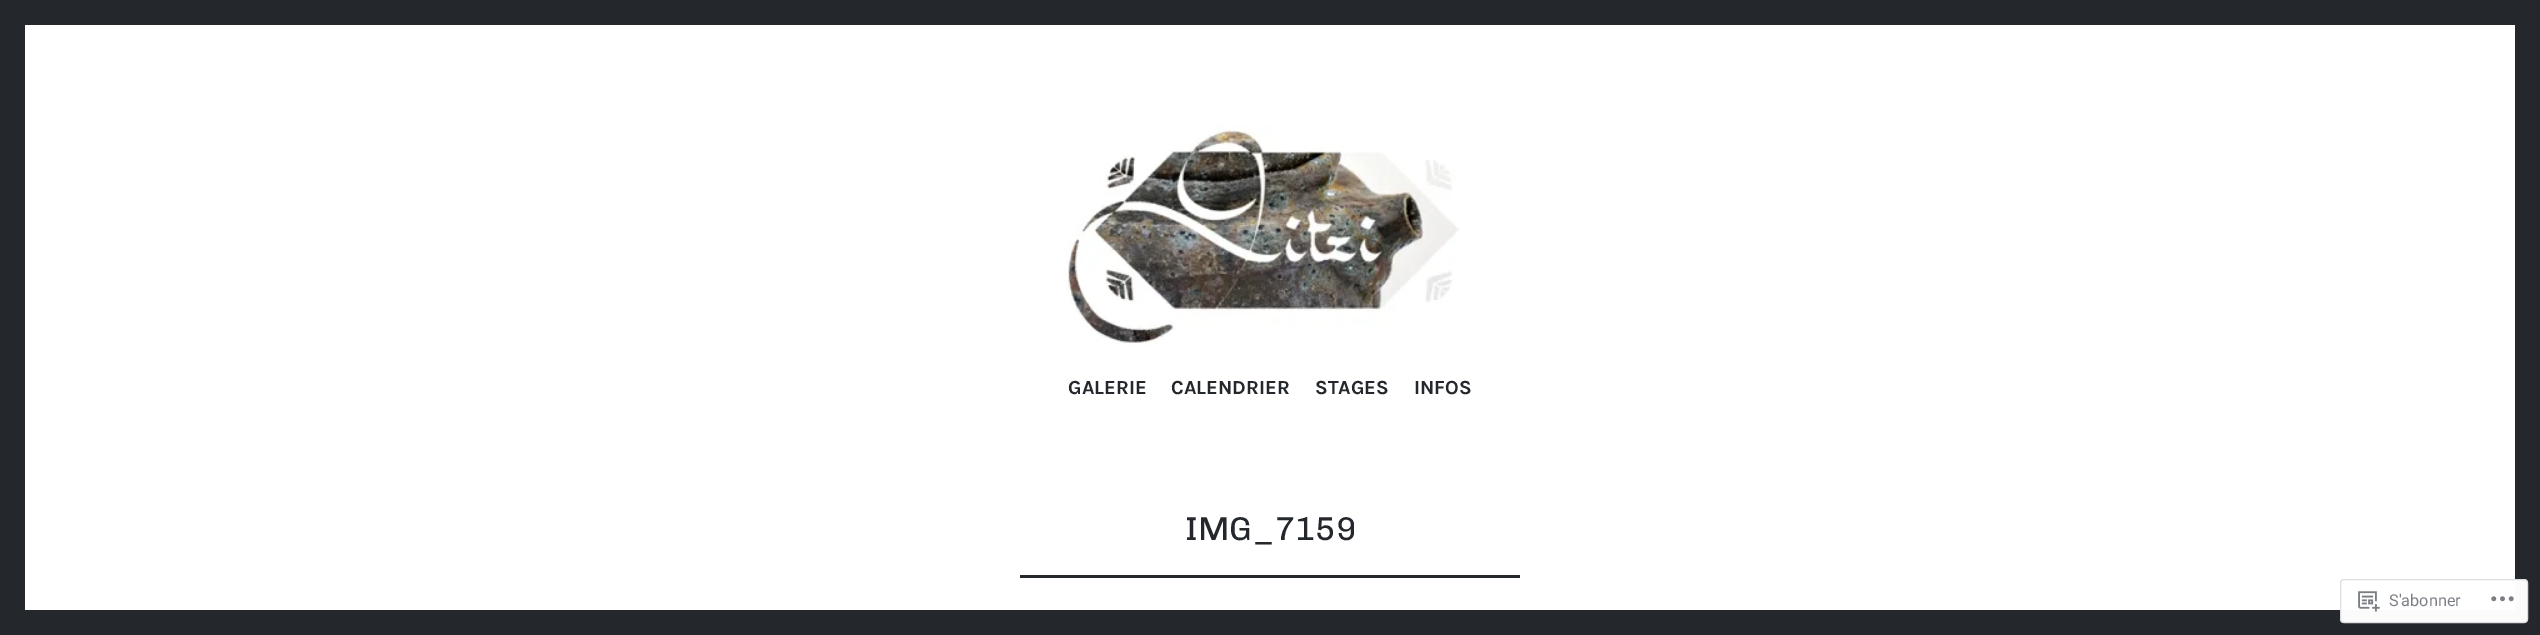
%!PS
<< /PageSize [2540 635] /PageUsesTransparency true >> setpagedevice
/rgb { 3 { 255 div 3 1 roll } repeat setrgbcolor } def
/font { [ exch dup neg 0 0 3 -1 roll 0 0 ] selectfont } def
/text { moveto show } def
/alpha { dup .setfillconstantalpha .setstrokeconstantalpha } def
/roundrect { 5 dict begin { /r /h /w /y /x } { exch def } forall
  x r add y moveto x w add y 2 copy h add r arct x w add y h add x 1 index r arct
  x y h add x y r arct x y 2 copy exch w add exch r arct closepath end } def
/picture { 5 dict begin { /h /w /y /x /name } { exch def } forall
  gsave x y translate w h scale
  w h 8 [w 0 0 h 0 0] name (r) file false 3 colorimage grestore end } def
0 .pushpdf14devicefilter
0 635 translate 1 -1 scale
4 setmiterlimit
36 40 45 rgb
0 0 2540 635 rectfill
255 255 255 rgb
25 25 2490 585 rectfill
(img_01.rgb) 1065 125 395 220 picture
36 40 45 rgb
1020 575 500 3 rectfill
0.98 alpha
255 255 255 rgb
2340 579 188 44 4 roundrect fill
220 220 222 rgb
2340.5 579.5 187 43 3.5 roundrect stroke
1 alpha
(img_02.rgb) 2358 591 22 21 picture
(img_03.rgb) 2491 596 23 6 picture
/Karla-Bold 20 font
36 40 45 rgb
(GALERIE) 1068 394 text
(CALENDRIER) 1171 394 text
(STAGES) 1315 394 text
(INFOS) 1414 394 text
/Chivo-Medium 33 font
(IMG_7159) 1185 540 text
/Roboto-Regular 16.25 font
123 127 133 rgb
(S'abonner) 2389 606 text
.poppdf14devicefilter showpage
